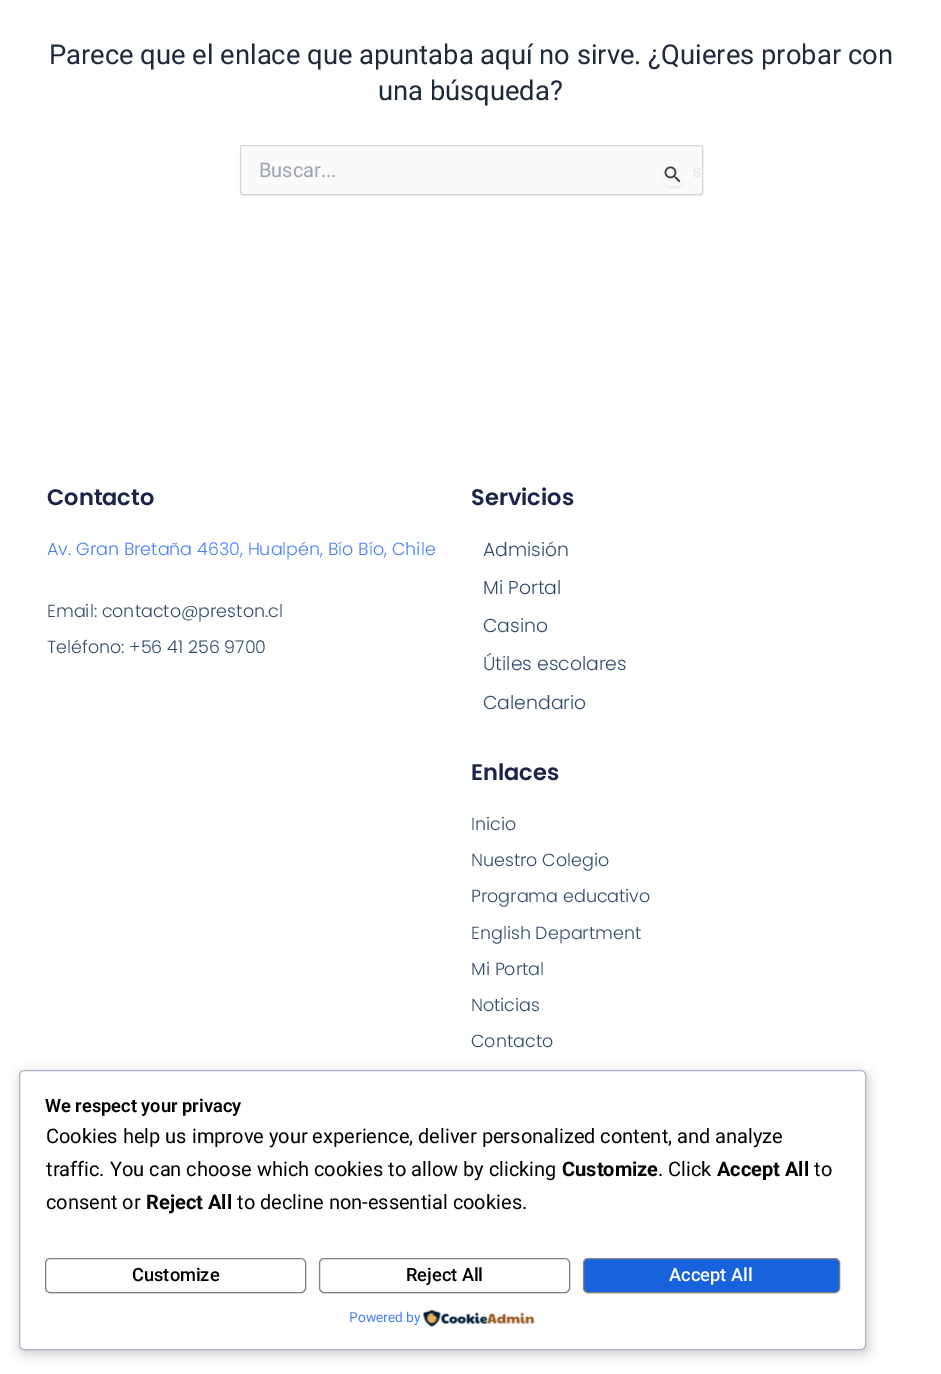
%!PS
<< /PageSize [941 1374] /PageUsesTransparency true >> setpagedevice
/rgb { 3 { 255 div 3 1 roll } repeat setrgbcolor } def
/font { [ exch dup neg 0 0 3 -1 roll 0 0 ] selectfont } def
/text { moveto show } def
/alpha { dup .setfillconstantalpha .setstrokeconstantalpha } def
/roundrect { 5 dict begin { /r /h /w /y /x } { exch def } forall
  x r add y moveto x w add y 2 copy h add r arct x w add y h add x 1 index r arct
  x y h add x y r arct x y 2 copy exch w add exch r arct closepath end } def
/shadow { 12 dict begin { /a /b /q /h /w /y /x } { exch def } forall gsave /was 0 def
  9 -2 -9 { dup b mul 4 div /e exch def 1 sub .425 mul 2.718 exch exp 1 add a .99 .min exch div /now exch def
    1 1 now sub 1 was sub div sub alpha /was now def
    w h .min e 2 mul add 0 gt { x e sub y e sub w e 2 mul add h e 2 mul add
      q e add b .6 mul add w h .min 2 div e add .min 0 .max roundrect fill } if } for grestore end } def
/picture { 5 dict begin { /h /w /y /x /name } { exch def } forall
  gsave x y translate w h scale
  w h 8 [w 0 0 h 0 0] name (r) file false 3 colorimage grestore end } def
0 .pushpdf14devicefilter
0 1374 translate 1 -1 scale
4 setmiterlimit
255 255 255 rgb
0 0 941 1374 rectfill
0 0 0 rgb
240 146 463 50 2.5 1 0.05 shadow
250 250 250 rgb
240.5 145.5 462 49 2 roundrect gsave fill grestore
209 213 219 rgb
stroke
gsave
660 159 moveto 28 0 rlineto 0 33 rlineto -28 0 rlineto closepath 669 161 moveto 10 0 rlineto 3 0 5 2 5 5 rcurveto 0 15 rlineto 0 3 -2 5 -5 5 rcurveto -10 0 rlineto -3 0 -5 -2 -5 -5 rcurveto 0 -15 rlineto 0 -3 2 -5 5 -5 rcurveto closepath eoclip newpath
0 0 0 rgb
664 163 20 25 5 1 0.05 shadow
grestore
(img_01.rgb) 664 166 17 17 picture
0 0 0 rgb
20 1074 848 280 5 6 0.2 shadow
255 255 255 rgb
19.5 1070.5 846 279 4.5 roundrect gsave fill grestore
171 184 195 rgb
stroke
0 0 0 rgb
45 1259 261 35 5 1 0.05 shadow
255 255 255 rgb
45.5 1258.5 260 34 4.5 roundrect gsave fill grestore
128 128 128 rgb
stroke
0 0 0 rgb
319 1259 251 35 5 1 0.05 shadow
255 255 255 rgb
319.5 1258.5 250 34 4.5 roundrect gsave fill grestore
128 128 128 rgb
stroke
0 0 0 rgb
583 1259 257 35 5 1 0.05 shadow
24 99 220 rgb
583.5 1258.5 256 34 4.5 roundrect gsave fill grestore
128 128 128 rgb
stroke
(img_02.rgb) 423 1309 112 18 picture
/Roboto-Regular 27.35 font
30 41 59 rgb
(Parece que el enlace que apuntaba aquí no sirve. ¿Quieres probar con) 49 64 text
(una búsqueda?) 378 100 text
/Roboto-Regular 20 font
156 163 175 rgb
(Buscar...) 259 177 text
/Roboto-Medium 18.25 font
233 233 233 rgb
(s) 692 177 text
/Poppins-SemiBold 22.5 font
28 36 75 rgb
(Contacto) 47 505 text
/Poppins-Light 17.5 font
70 127 247 rgb
(Av. Gran Bretaña 4630, Hualpén, Bío Bío, Chile) 47 555 text
50 74 109 rgb
(Email: contacto@preston.cl) 47 617 text
(Teléfono: +56 41 256 9700) 47 653 text
/Poppins-SemiBold 22.5 font
28 36 75 rgb
(Servicios) 471 505 text
/Poppins-Light 18.75 font
50 74 109 rgb
(Admisión) 483 556 text
(Mi Portal) 483 594 text
(Casino) 483 632 text
(Útiles escolares) 483 670 text
(Calendario) 483 709 text
/Poppins-SemiBold 22.5 font
28 36 75 rgb
(Enlaces) 471 780 text
/Poppins-Light 17.5 font
50 74 109 rgb
(Inicio) 471 830 text
(Nuestro Colegio) 471 866 text
(Programa educativo) 471 902 text
(English Department) 471 939 text
(Mi Portal) 471 975 text
(Noticias) 471 1011 text
(Contacto) 471 1047 text
/Roboto-SemiBold 18.25 font
0 0 0 rgb
(We respect your privacy) 45 1112 text
/Roboto-Regular 20 font
(Cookies help us improve your experience, deliver personalized content, and analyze) 46 1143 text
(traffic. You can choose which cookies to allow by clicking) 46 1176 text
/Roboto-Bold 20 font
(Customize) 562 1176 text
/Roboto-Regular 20 font
(. Click) 658 1176 text
/Roboto-Bold 20 font
(Accept All) 717 1176 text
/Roboto-Regular 20 font
(to) 814 1176 text
(consent or) 46 1209 text
/Roboto-Bold 20 font
(Reject All) 146 1209 text
/Roboto-Regular 20 font
(to decline non-essential cookies.) 237 1209 text
/Roboto-Medium 18.25 font
(Customize) 132 1281 text
(Reject All) 406 1281 text
255 255 255 rgb
(Accept All) 669 1281 text
/Roboto-Regular 13.75 font
70 127 247 rgb
(Powered by) 349 1322 text
.poppdf14devicefilter showpage
